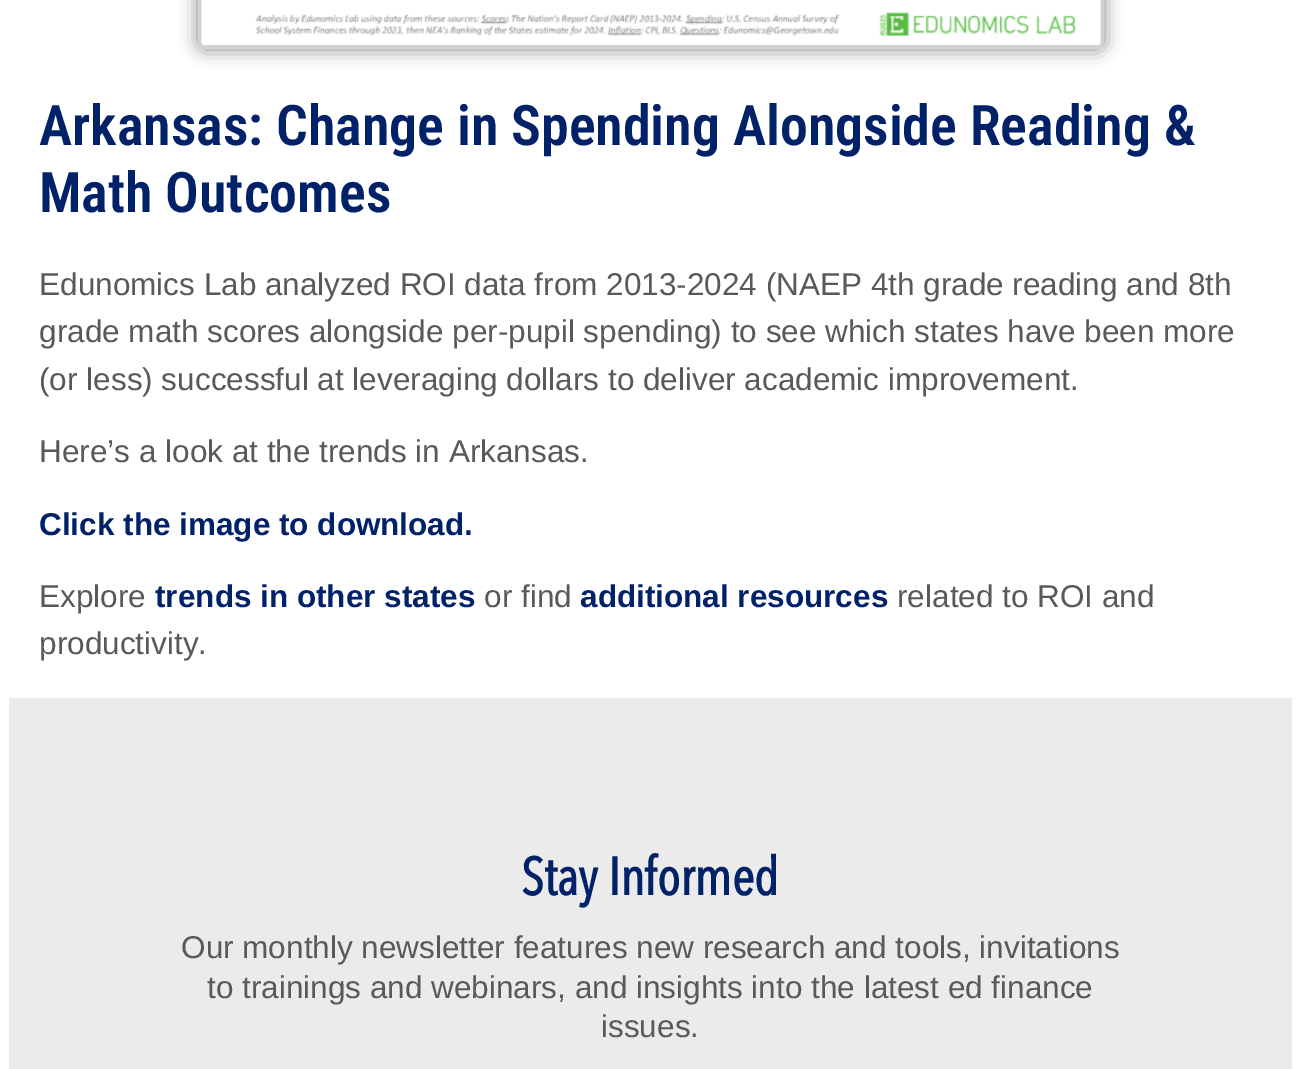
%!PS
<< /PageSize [1299 1069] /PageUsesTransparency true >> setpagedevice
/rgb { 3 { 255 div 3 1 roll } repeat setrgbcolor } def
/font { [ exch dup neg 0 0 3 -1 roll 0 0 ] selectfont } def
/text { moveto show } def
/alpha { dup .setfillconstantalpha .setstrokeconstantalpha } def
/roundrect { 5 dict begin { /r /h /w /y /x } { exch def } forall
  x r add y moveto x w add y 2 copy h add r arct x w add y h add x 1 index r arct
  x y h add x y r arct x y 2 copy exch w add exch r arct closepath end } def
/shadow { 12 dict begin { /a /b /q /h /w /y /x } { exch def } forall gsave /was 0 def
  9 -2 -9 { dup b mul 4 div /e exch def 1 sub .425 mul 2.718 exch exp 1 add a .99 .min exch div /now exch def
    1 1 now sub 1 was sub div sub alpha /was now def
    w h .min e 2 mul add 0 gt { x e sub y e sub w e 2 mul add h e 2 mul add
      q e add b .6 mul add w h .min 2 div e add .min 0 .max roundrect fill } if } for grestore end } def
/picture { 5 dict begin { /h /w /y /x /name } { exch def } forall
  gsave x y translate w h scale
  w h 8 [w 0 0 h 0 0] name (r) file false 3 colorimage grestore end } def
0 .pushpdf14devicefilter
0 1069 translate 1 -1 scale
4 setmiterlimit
255 255 255 rgb
0 0 1299 1069 rectfill
0 0 0 rgb
198 -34 906 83 7 9 0.5 shadow
209 210 210 rgb
4 setlinewidth
200 -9 902 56 5 roundrect stroke
(img_01.rgb) 201 0 900 45 picture
235 235 235 rgb
9 698 1283 371 rectfill
/RobotoCondensed-SemiBold 56 font
1 33 105 rgb
(Arkansas: Change in Spending Alongside Reading &) 39 145 text
(Math Outcomes) 39 212 text
/LiberationSans-Regular 31.5 font
89 89 89 rgb
(Edunomics Lab analyzed ROI data from 2013-2024 \(NAEP 4th grade reading and 8th) 39 295 text
(grade math scores alongside per-pupil spending\) to see which states have been more) 39 342 text
(\(or less\) successful at leveraging dollars to deliver academic improvement.) 39 390 text
(Here’s a look at the trends in Arkansas.) 39 462 text
/LiberationSans-Bold 31.5 font
1 33 105 rgb
(Click the image to download.) 39 535 text
/LiberationSans-Regular 31.5 font
89 89 89 rgb
(Explore) 39 607 text
/LiberationSans-Bold 31.5 font
1 33 105 rgb
(trends in other states) 155 607 text
/LiberationSans-Regular 31.5 font
89 89 89 rgb
(or find) 484 607 text
/LiberationSans-Bold 31.5 font
1 33 105 rgb
(additional resources) 580 607 text
/LiberationSans-Regular 31.5 font
89 89 89 rgb
(related to ROI and) 897 607 text
(productivity.) 39 654 text
/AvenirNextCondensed-Bold 52.5 font
1 33 105 rgb
(Stay Informed) 521 895 text
/LiberationSans-Regular 31.5 font
89 89 89 rgb
(Our monthly newsletter features new research and tools, invitations) 181 958 text
(to trainings and webinars, and insights into the latest ed finance) 207 998 text
(issues.) 601 1037 text
.poppdf14devicefilter showpage
